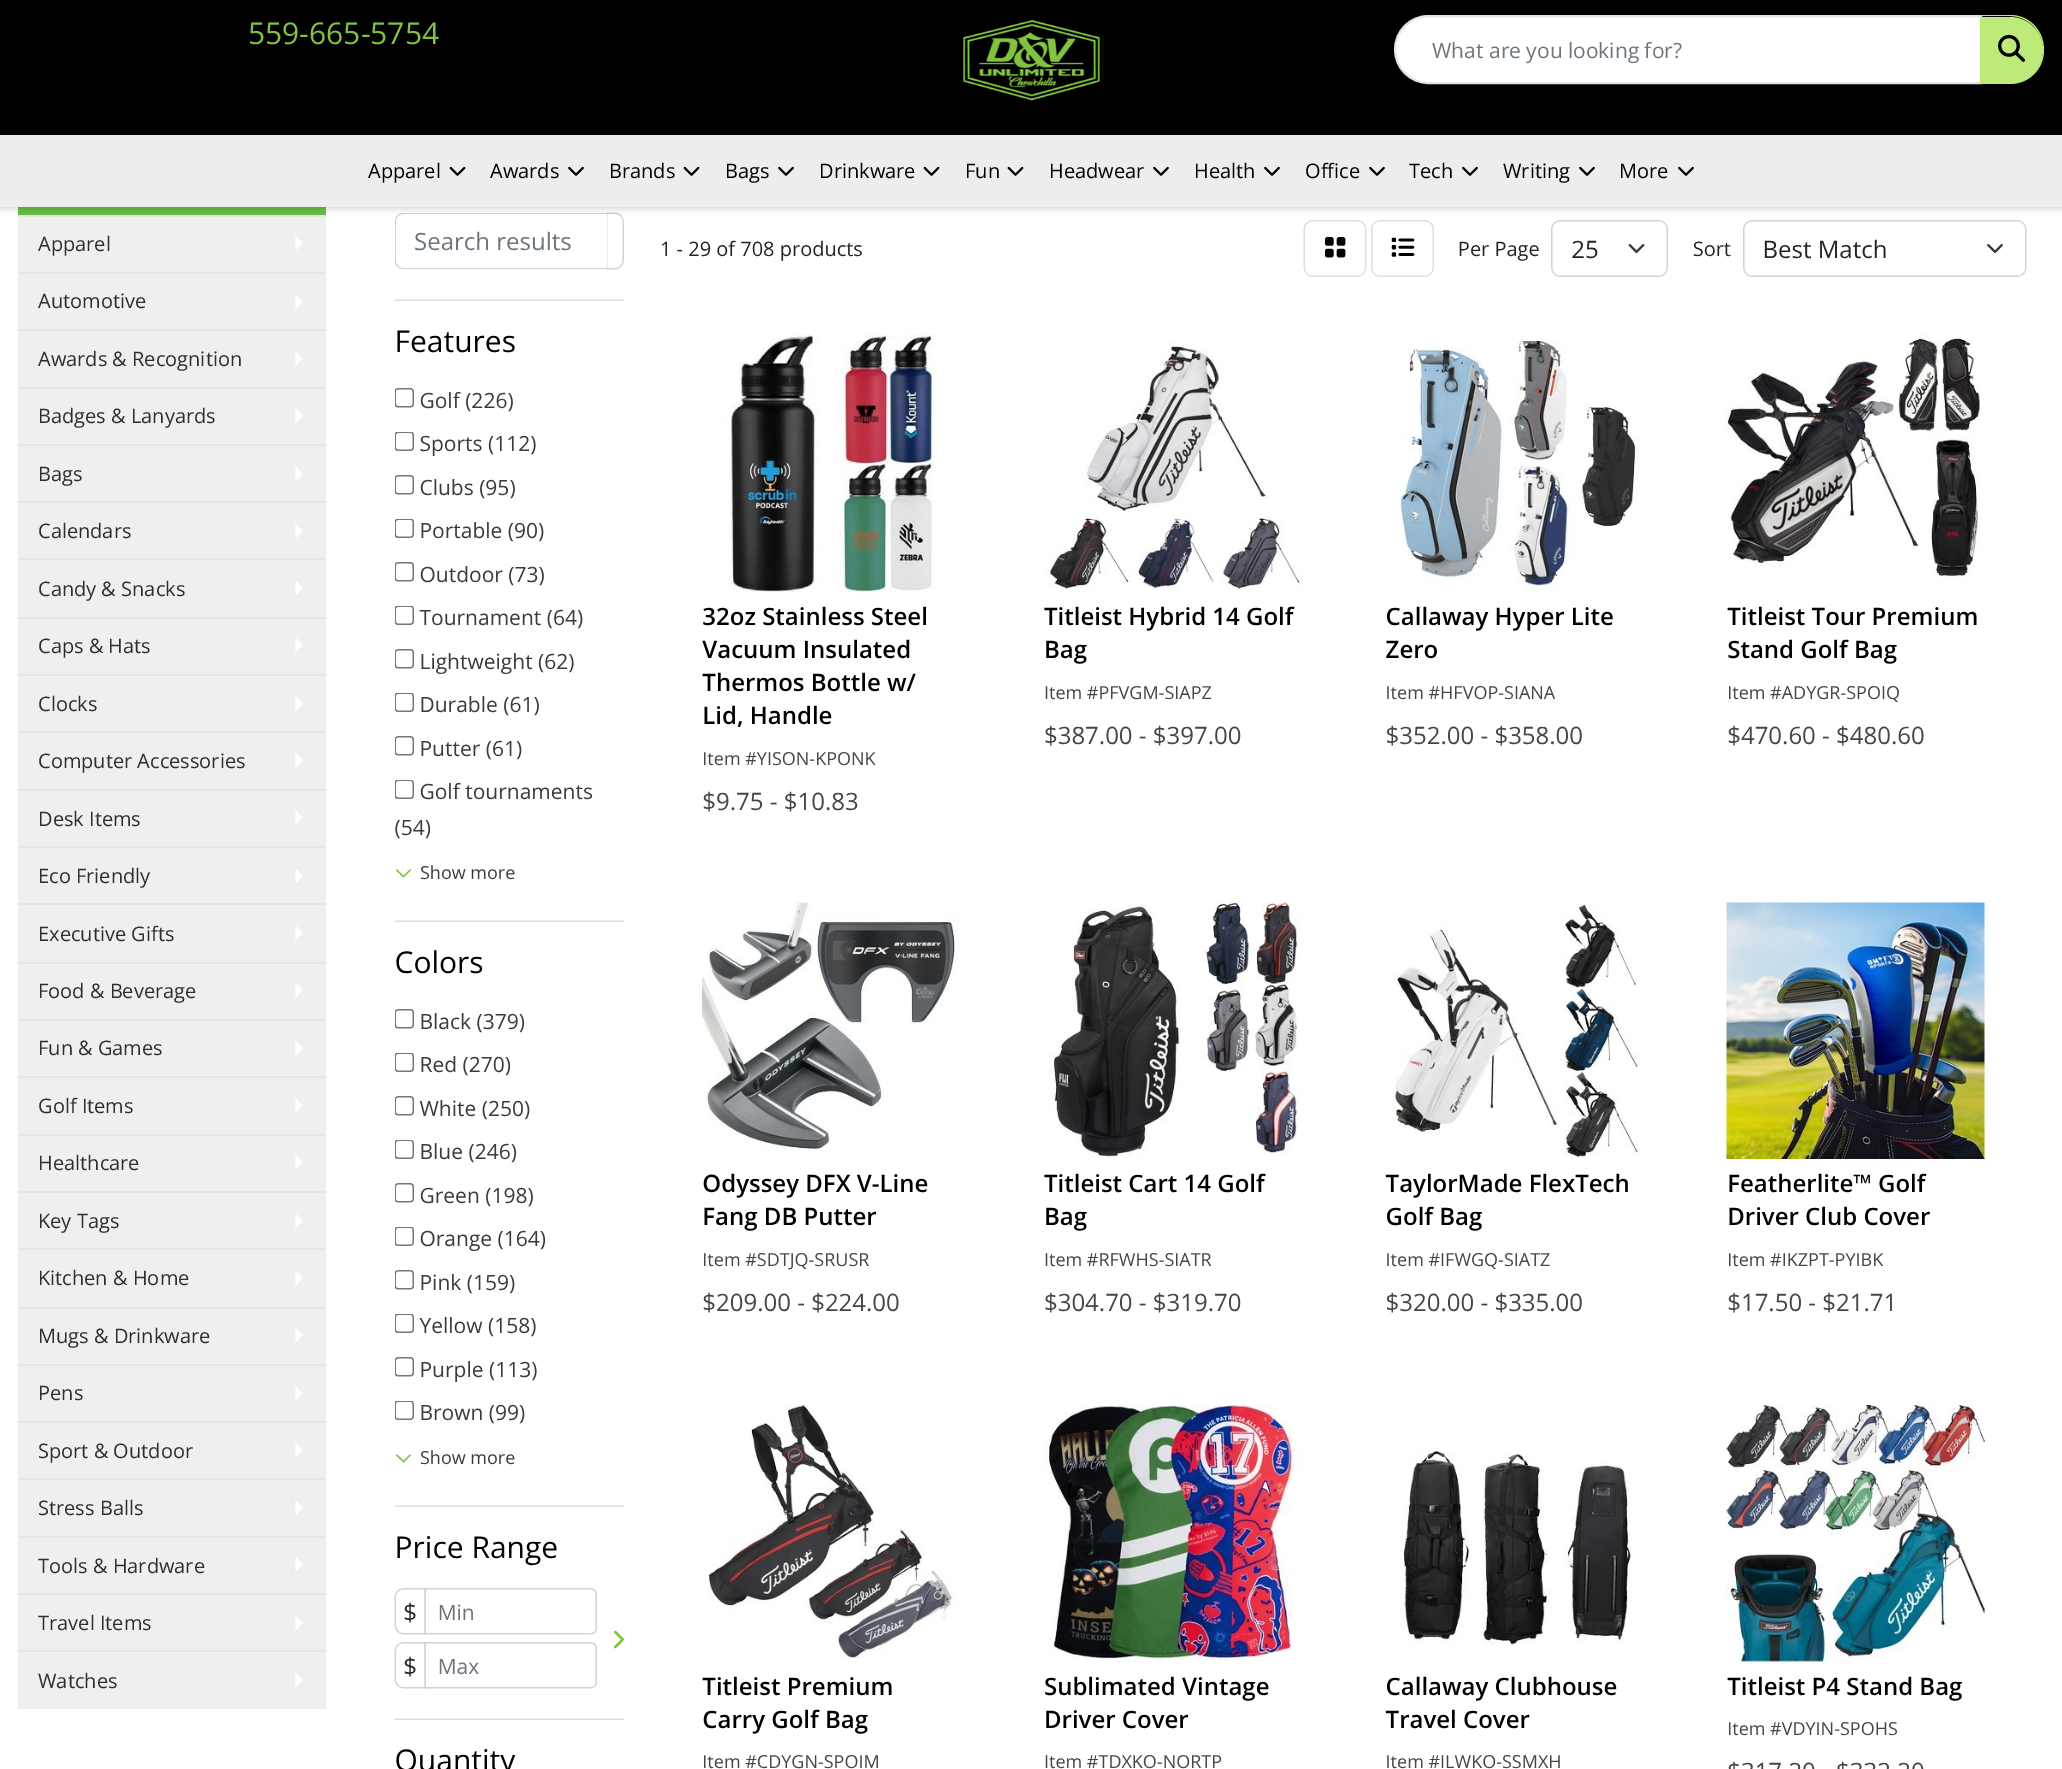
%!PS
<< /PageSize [2062 1769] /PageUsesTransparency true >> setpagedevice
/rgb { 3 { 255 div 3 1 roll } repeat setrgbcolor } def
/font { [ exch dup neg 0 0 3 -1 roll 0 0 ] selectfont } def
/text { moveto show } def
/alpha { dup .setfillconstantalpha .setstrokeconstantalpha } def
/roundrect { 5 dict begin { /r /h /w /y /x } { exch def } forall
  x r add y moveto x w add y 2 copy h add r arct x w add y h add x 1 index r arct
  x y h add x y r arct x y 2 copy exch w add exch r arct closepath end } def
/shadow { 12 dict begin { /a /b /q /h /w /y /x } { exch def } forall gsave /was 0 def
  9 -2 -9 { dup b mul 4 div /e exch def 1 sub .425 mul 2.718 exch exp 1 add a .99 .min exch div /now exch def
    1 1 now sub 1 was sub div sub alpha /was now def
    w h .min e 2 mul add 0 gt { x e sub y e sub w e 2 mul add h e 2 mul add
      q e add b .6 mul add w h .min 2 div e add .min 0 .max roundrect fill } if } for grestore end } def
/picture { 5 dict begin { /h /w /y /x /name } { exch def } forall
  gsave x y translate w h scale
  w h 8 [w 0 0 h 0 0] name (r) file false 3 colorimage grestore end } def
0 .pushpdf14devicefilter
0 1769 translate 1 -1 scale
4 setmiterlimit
255 255 255 rgb
0 0 2062 1769 rectfill
104 189 68 rgb
18 207 308 8 rectfill
239 239 239 rgb
18 217 308 55 rectfill
229 229 229 rgb
18 215 308 2 rectfill
(img_05.rgb) 394 207 1633 1562 picture
0 0 0 rgb
0 0 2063 207 0 4 0.1 shadow
0 0 2062 135 rectfill
(img_01.rgb) 963 16 141 85 picture
255 255 255 rgb
1428.5 16 moveto 552.5 0 rlineto 0 67 rlineto -552.5 0 rlineto -18.5 0 -33.5 -15 -33.5 -33.5 rcurveto 0 -18.5 15 -33.5 33.5 -33.5 rcurveto closepath gsave fill grestore
228 228 228 rgb
2 setlinewidth
stroke
190 234 121 rgb
1980 17 moveto 30 0 rlineto 18 0 33 15 33 33 rcurveto 0 18 -15 33 -33 33 rcurveto -30 0 rlineto closepath fill
1980 15 moveto 30 0 rlineto 19 0 34 15 34 35 rcurveto 0 19 -15 34 -34 34 rcurveto -30 0 rlineto closepath 1980 16 moveto 30 0 rlineto 18 0 33 15 33 34 rcurveto 0 18 -15 32 -33 32 rcurveto -30 0 rlineto closepath eofill
(img_02.rgb) 1998 34 27 28 picture
0 0 0 rgb
0 138 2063 72 0 3 0.07 shadow
237 237 237 rgb
0 135 2062 72 rectfill
(img_03.rgb) 449 166 17 10 picture
(img_04.rgb) 568 166 16 10 picture
(img_03.rgb) 683 166 17 10 picture
(img_04.rgb) 778 166 16 10 picture
(img_03.rgb) 923 166 17 10 picture
(img_03.rgb) 1007 166 17 10 picture
(img_04.rgb) 1153 166 16 10 picture
(img_04.rgb) 1264 166 16 10 picture
(img_04.rgb) 1369 166 16 10 picture
(img_04.rgb) 1462 166 16 10 picture
(img_04.rgb) 1579 166 16 10 picture
(img_04.rgb) 1678 166 16 10 picture
255 255 255 rgb
295.5 250.5 moveto 0 -15 rlineto 7.5 7.5 rlineto closepath fill
239 239 239 rgb
18 274 308 55 rectfill
229 229 229 rgb
18 272 308 2 rectfill
255 255 255 rgb
295.5 309 moveto 0 -15 rlineto 7.5 7.5 rlineto closepath fill
239 239 239 rgb
18 331 308 56 rectfill
229 229 229 rgb
18 329 308 2 rectfill
255 255 255 rgb
295.5 366 moveto 0 -15 rlineto 7.5 7.5 rlineto closepath fill
239 239 239 rgb
18 389 308 55 rectfill
229 229 229 rgb
18 387 308 2 rectfill
255 255 255 rgb
295.5 423 moveto 0 -15 rlineto 7.5 7.5 rlineto closepath fill
239 239 239 rgb
18 446 308 55 rectfill
229 229 229 rgb
18 444 308 2 rectfill
255 255 255 rgb
295.5 481.5 moveto 0 -15 rlineto 7.5 7.5 rlineto closepath fill
239 239 239 rgb
18 503 308 55 rectfill
229 229 229 rgb
18 501 308 2 rectfill
255 255 255 rgb
295.5 538.5 moveto 0 -15 rlineto 7.5 7.5 rlineto closepath fill
239 239 239 rgb
18 560 308 57 rectfill
229 229 229 rgb
18 558 308 2 rectfill
255 255 255 rgb
295.5 595.5 moveto 0 -15 rlineto 7.5 7.5 rlineto closepath fill
239 239 239 rgb
18 619 308 55 rectfill
229 229 229 rgb
18 617 308 2 rectfill
255 255 255 rgb
295.5 652.5 moveto 0 -15 rlineto 7.5 7.5 rlineto closepath fill
239 239 239 rgb
18 676 308 55 rectfill
229 229 229 rgb
18 674 308 2 rectfill
255 255 255 rgb
295.5 711 moveto 0 -15 rlineto 7.5 7.5 rlineto closepath fill
239 239 239 rgb
18 733 308 56 rectfill
229 229 229 rgb
18 731 308 2 rectfill
255 255 255 rgb
295.5 768 moveto 0 -15 rlineto 7.5 7.5 rlineto closepath fill
239 239 239 rgb
18 791 308 55 rectfill
229 229 229 rgb
18 789 308 2 rectfill
255 255 255 rgb
295.5 825 moveto 0 -15 rlineto 7.5 7.5 rlineto closepath fill
239 239 239 rgb
18 848 308 55 rectfill
229 229 229 rgb
18 846 308 2 rectfill
255 255 255 rgb
295.5 883.5 moveto 0 -15 rlineto 7.5 7.5 rlineto closepath fill
239 239 239 rgb
18 905 308 57 rectfill
229 229 229 rgb
18 903 308 2 rectfill
255 255 255 rgb
295.5 940.5 moveto 0 -15 rlineto 7.5 7.5 rlineto closepath fill
239 239 239 rgb
18 964 308 55 rectfill
229 229 229 rgb
18 962 308 2 rectfill
255 255 255 rgb
295.5 997.5 moveto 0 -15 rlineto 7.5 7.5 rlineto closepath fill
239 239 239 rgb
18 1021 308 55 rectfill
229 229 229 rgb
18 1019 308 2 rectfill
255 255 255 rgb
295.5 1056 moveto 0 -15 rlineto 7.5 7.5 rlineto closepath fill
239 239 239 rgb
18 1078 308 56 rectfill
229 229 229 rgb
18 1076 308 2 rectfill
255 255 255 rgb
295.5 1113 moveto 0 -15 rlineto 7.5 7.5 rlineto closepath fill
239 239 239 rgb
18 1136 308 55 rectfill
229 229 229 rgb
18 1134 308 2 rectfill
255 255 255 rgb
295.5 1170 moveto 0 -15 rlineto 7.5 7.5 rlineto closepath fill
239 239 239 rgb
18 1193 308 55 rectfill
229 229 229 rgb
18 1191 308 2 rectfill
255 255 255 rgb
295.5 1228.5 moveto 0 -15 rlineto 7.5 7.5 rlineto closepath fill
239 239 239 rgb
18 1250 308 57 rectfill
229 229 229 rgb
18 1248 308 2 rectfill
255 255 255 rgb
295.5 1285.5 moveto 0 -15 rlineto 7.5 7.5 rlineto closepath fill
239 239 239 rgb
18 1309 308 55 rectfill
229 229 229 rgb
18 1307 308 2 rectfill
255 255 255 rgb
295.5 1342.5 moveto 0 -15 rlineto 7.5 7.5 rlineto closepath fill
239 239 239 rgb
18 1366 308 55 rectfill
229 229 229 rgb
18 1364 308 2 rectfill
255 255 255 rgb
295.5 1401 moveto 0 -15 rlineto 7.5 7.5 rlineto closepath fill
239 239 239 rgb
18 1423 308 55 rectfill
229 229 229 rgb
18 1421 308 2 rectfill
255 255 255 rgb
295.5 1458 moveto 0 -15 rlineto 7.5 7.5 rlineto closepath fill
239 239 239 rgb
18 1480 308 56 rectfill
229 229 229 rgb
18 1478 308 2 rectfill
255 255 255 rgb
295.5 1515 moveto 0 -15 rlineto 7.5 7.5 rlineto closepath fill
239 239 239 rgb
18 1538 308 55 rectfill
229 229 229 rgb
18 1536 308 2 rectfill
255 255 255 rgb
295.5 1572 moveto 0 -15 rlineto 7.5 7.5 rlineto closepath fill
239 239 239 rgb
18 1595 308 55 rectfill
229 229 229 rgb
18 1593 308 2 rectfill
255 255 255 rgb
295.5 1630.5 moveto 0 -15 rlineto 7.5 7.5 rlineto closepath fill
239 239 239 rgb
18 1652 308 57 rectfill
229 229 229 rgb
18 1650 308 2 rectfill
255 255 255 rgb
295.5 1687.5 moveto 0 -15 rlineto 7.5 7.5 rlineto closepath fill
/OpenSans-Regular 30 font
129 195 65 rgb
(559-665-5754) 248 44 text
/OpenSans-Regular 21 font
108 117 125 rgb
(What are you looking for?) 1432 58 text
/OpenSans-Regular 20 font
0 0 0 rgb
(Apparel) 368 178 text
(Awards) 490 178 text
(Brands) 609 178 text
(Bags) 725 178 text
(Drinkware) 819 178 text
(Fun) 965 178 text
(Headwear) 1049 178 text
(Health) 1194 178 text
(Office) 1305 178 text
(Tech) 1409 178 text
(Writing) 1503 178 text
(More) 1619 178 text
46 46 46 rgb
(Apparel) 38 251 text
(Automotive) 38 308 text
(Awards & Recognition) 38 366 text
(Badges & Lanyards) 38 423 text
(Bags) 38 481 text
(Calendars) 38 538 text
(Candy & Snacks) 38 596 text
(Caps & Hats) 38 653 text
(Clocks) 38 711 text
(Computer Accessories) 38 768 text
(Desk Items) 38 826 text
(Eco Friendly) 38 883 text
(Executive Gifts) 38 941 text
(Food & Beverage) 38 998 text
(Fun & Games) 38 1055 text
(Golf Items) 38 1113 text
(Healthcare) 38 1170 text
(Key Tags) 38 1228 text
(Kitchen & Home) 38 1285 text
(Mugs & Drinkware) 38 1343 text
(Pens) 38 1400 text
(Sport & Outdoor) 38 1458 text
(Stress Balls) 38 1515 text
(Tools & Hardware) 38 1573 text
(Travel Items) 38 1630 text
(Watches) 38 1688 text
.poppdf14devicefilter showpage
